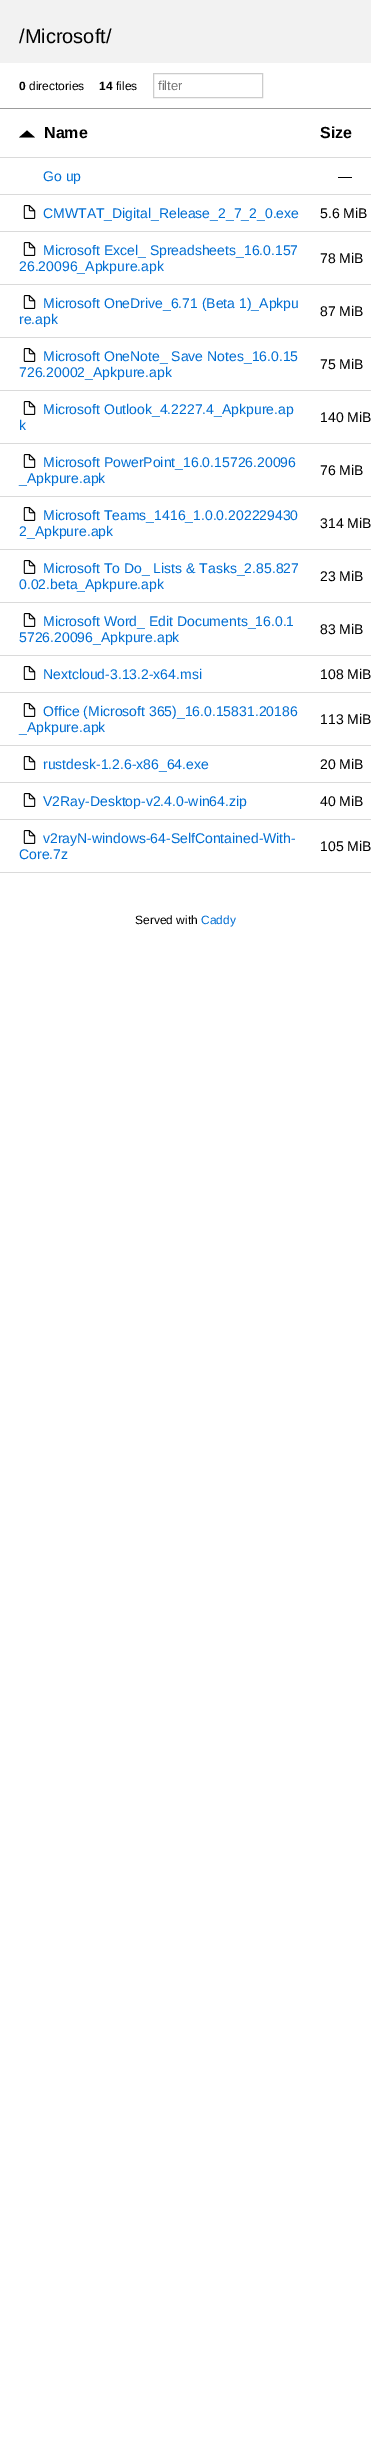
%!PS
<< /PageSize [371 2459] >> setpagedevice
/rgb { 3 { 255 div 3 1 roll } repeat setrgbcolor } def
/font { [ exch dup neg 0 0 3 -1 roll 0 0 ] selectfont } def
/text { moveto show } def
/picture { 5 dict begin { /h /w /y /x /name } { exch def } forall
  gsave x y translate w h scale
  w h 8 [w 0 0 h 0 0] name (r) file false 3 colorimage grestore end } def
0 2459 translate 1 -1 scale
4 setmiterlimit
255 255 255 rgb
0 0 371 2459 rectfill
242 242 242 rgb
0 0 371 63 rectfill
156 156 156 rgb
0 108 371 1 rectfill
204 204 204 rgb
153.5 73.5 109 24 rectstroke
218 218 218 rgb
0 157 371 1 rectfill
0 0 0 rgb
35 137.5 moveto -16 0 rlineto 8 -7 rlineto 4 3.5 rlineto closepath fill
218 218 218 rgb
0 194 371 1 rectfill
0 231 371 1 rectfill
(img_01.rgb) 23 205 13 14 picture
0 284 371 1 rectfill
(img_01.rgb) 23 242 13 14 picture
0 337 371 1 rectfill
(img_01.rgb) 23 295 13 14 picture
0 390 371 1 rectfill
(img_01.rgb) 23 348 13 14 picture
0 443 371 1 rectfill
(img_01.rgb) 23 401 13 14 picture
0 496 371 1 rectfill
(img_01.rgb) 23 454 13 14 picture
0 549 371 1 rectfill
(img_01.rgb) 23 507 13 14 picture
0 602 371 1 rectfill
(img_01.rgb) 23 560 13 14 picture
0 655 371 1 rectfill
(img_01.rgb) 23 613 13 14 picture
0 692 371 1 rectfill
(img_01.rgb) 23 666 13 14 picture
0 745 371 1 rectfill
(img_01.rgb) 23 703 13 14 picture
0 782 371 1 rectfill
(img_01.rgb) 23 756 13 14 picture
0 819 371 1 rectfill
(img_01.rgb) 23 793 13 14 picture
0 872 371 1 rectfill
(img_01.rgb) 23 830 13 14 picture
/LiberationSans-Regular 20 font
0 0 0 rgb
(/Microsoft/) 19 43 text
/LiberationSans-Bold 12 font
(0) 19 90 text
/LiberationSans-Regular 12 font
(directories) 29 90 text
/LiberationSans-Bold 12 font
(14) 99 90 text
/LiberationSans-Regular 12 font
(files) 116 90 text
/LiberationSans-Regular 13 font
117 117 117 rgb
(filter) 158 90 text
/LiberationSans-Bold 16 font
0 0 0 rgb
(Name) 44 138 text
(Size) 320 138 text
/LiberationSans-Regular 14 font
0 110 211 rgb
(Go up) 43 181 text
0 0 0 rgb
(—) 338 181 text
0 110 211 rgb
(CMWTAT_Digital_Release_2_7_2_0.exe) 43 218 text
0 0 0 rgb
(5.6 MiB) 320 218 text
0 110 211 rgb
(Microsoft Excel_ Spreadsheets_16.0.157) 43 255 text
(26.20096_Apkpure.apk) 19 271 text
0 0 0 rgb
(78 MiB) 320 263 text
0 110 211 rgb
(Microsoft OneDrive_6.71 \(Beta 1\)_Apkpu) 43 308 text
(re.apk) 19 324 text
0 0 0 rgb
(87 MiB) 320 316 text
0 110 211 rgb
(Microsoft OneNote_ Save Notes_16.0.15) 43 361 text
(726.20002_Apkpure.apk) 19 377 text
0 0 0 rgb
(75 MiB) 320 369 text
0 110 211 rgb
(Microsoft Outlook_4.2227.4_Apkpure.ap) 43 414 text
(k) 19 430 text
0 0 0 rgb
(140 MiB) 320 422 text
0 110 211 rgb
(Microsoft PowerPoint_16.0.15726.20096) 43 467 text
(_Apkpure.apk) 19 483 text
0 0 0 rgb
(76 MiB) 320 475 text
0 110 211 rgb
(Microsoft Teams_1416_1.0.0.202229430) 43 520 text
(2_Apkpure.apk) 19 536 text
0 0 0 rgb
(314 MiB) 320 528 text
0 110 211 rgb
(Microsoft To Do_ Lists & Tasks_2.85.827) 43 573 text
(0.02.beta_Apkpure.apk) 19 589 text
0 0 0 rgb
(23 MiB) 320 581 text
0 110 211 rgb
(Microsoft Word_ Edit Documents_16.0.1) 43 626 text
(5726.20096_Apkpure.apk) 19 642 text
0 0 0 rgb
(83 MiB) 320 634 text
0 110 211 rgb
(Nextcloud-3.13.2-x64.msi) 43 679 text
0 0 0 rgb
(108 MiB) 320 679 text
0 110 211 rgb
(Office \(Microsoft 365\)_16.0.15831.20186) 43 716 text
(_Apkpure.apk) 19 732 text
0 0 0 rgb
(113 MiB) 320 724 text
0 110 211 rgb
(rustdesk-1.2.6-x86_64.exe) 43 769 text
0 0 0 rgb
(20 MiB) 320 769 text
0 110 211 rgb
(V2Ray-Desktop-v2.4.0-win64.zip) 43 806 text
0 0 0 rgb
(40 MiB) 320 806 text
0 110 211 rgb
(v2rayN-windows-64-SelfContained-With-) 43 843 text
(Core.7z) 19 859 text
0 0 0 rgb
(105 MiB) 320 851 text
/LiberationSans-Regular 12 font
(Served with) 135 924 text
0 110 211 rgb
(Caddy) 201 924 text
showpage
